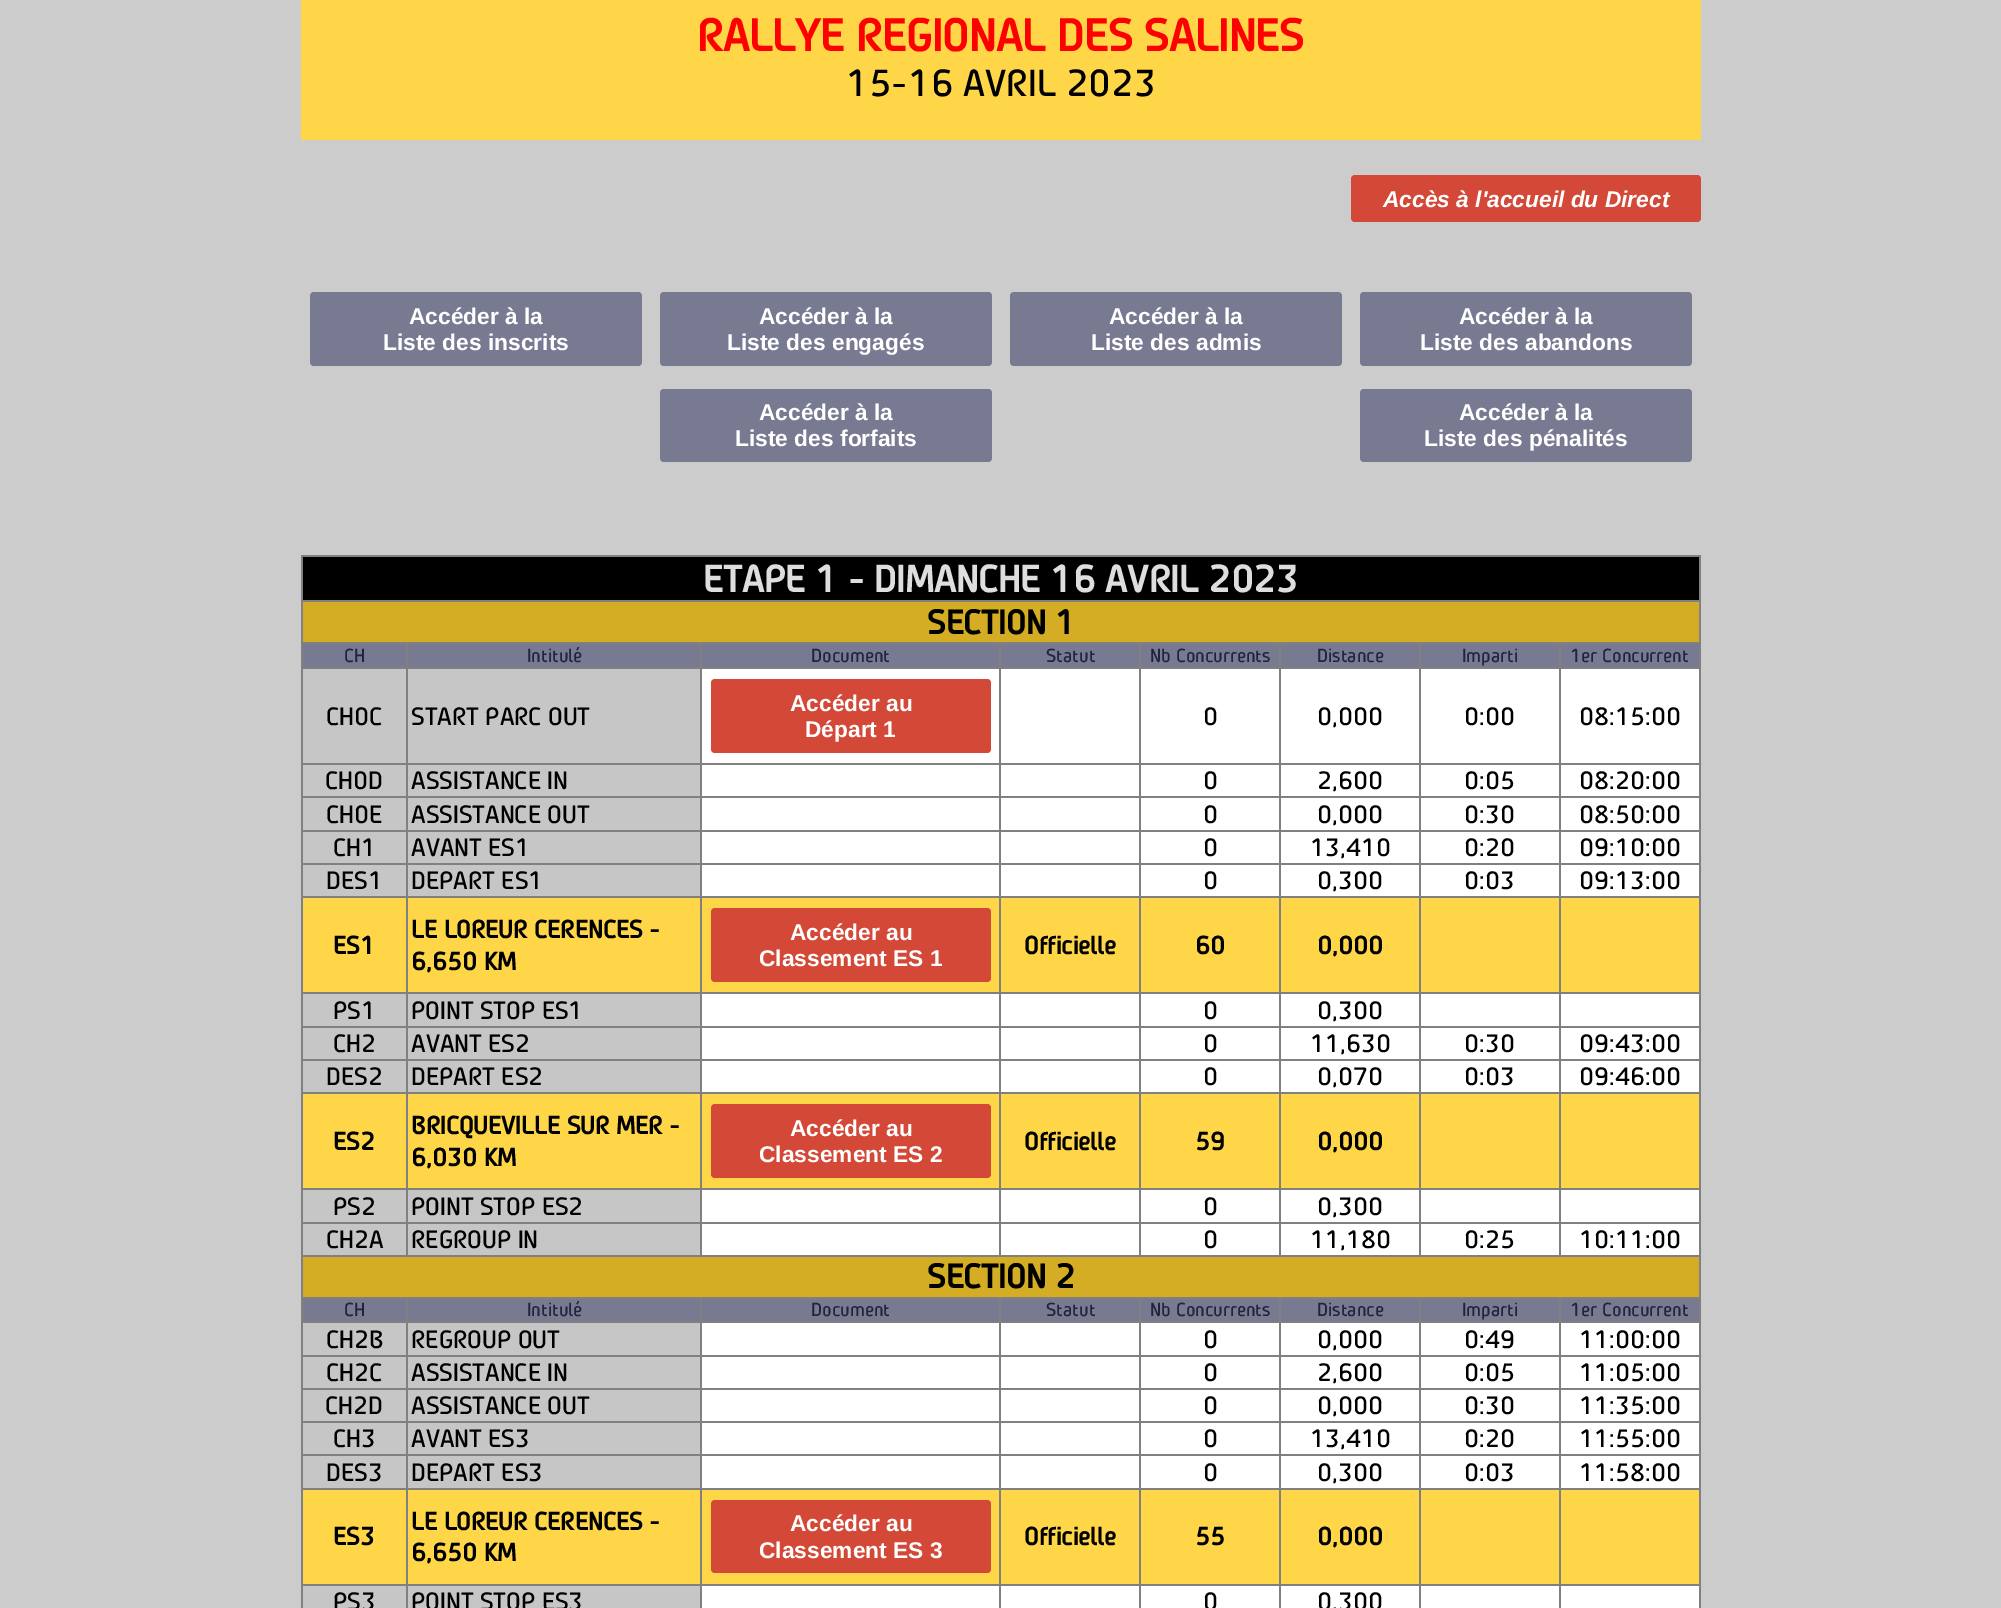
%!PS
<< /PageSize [2001 1608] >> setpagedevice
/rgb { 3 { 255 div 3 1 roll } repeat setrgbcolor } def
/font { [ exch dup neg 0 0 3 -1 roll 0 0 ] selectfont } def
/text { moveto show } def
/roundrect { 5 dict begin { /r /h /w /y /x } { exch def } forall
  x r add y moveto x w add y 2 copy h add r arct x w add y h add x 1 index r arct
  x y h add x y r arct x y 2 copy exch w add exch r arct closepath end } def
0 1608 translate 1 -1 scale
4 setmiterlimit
204 204 204 rgb
0 0 2001 1608 rectfill
255 214 71 rgb
301 0 1400 140 rectfill
211 72 54 rgb
1351 175 350 47 4 roundrect fill
120 122 146 rgb
310 292 332 74 4 roundrect fill
660 292 332 74 4 roundrect fill
1010 292 332 74 4 roundrect fill
1360 292 332 74 4 roundrect fill
660 389 332 73 4 roundrect fill
1360 389 332 73 4 roundrect fill
255 255 255 rgb
702 669 997 939 rectfill
128 128 128 rgb
301 555 1400 2 rectfill
1699 555 2 1053 rectfill
301 555 2 1053 rectfill
0 0 0 rgb
303 557 1396 43 rectfill
212 173 36 rgb
303 602 1396 40 rectfill
128 128 128 rgb
301 600 1400 2 rectfill
120 122 146 rgb
303 644 1396 23 rectfill
128 128 128 rgb
1559 642 142 2 rectfill
1559 667 142 2 rectfill
1559 763 142 2 rectfill
1559 796 142 2 rectfill
1559 830 142 2 rectfill
1559 863 142 2 rectfill
1559 896 142 2 rectfill
255 214 71 rgb
303 898 1396 94 rectfill
128 128 128 rgb
1559 992 142 2 rectfill
1559 1026 142 2 rectfill
1559 1059 142 2 rectfill
1559 1092 142 2 rectfill
255 214 71 rgb
303 1094 1396 94 rectfill
128 128 128 rgb
1559 1188 142 2 rectfill
1559 1222 142 2 rectfill
301 1255 1400 2 rectfill
1559 1222 2 35 rectfill
1419 1222 142 2 rectfill
1559 1188 2 35 rectfill
1419 1188 142 2 rectfill
1559 1092 2 98 rectfill
1419 1092 142 2 rectfill
1559 1059 2 35 rectfill
1419 1059 142 2 rectfill
1559 1026 2 35 rectfill
1419 1026 142 2 rectfill
1559 992 2 35 rectfill
1419 992 142 2 rectfill
1559 896 2 98 rectfill
1419 896 142 2 rectfill
1559 863 2 35 rectfill
1419 863 142 2 rectfill
1559 830 2 35 rectfill
1419 830 142 2 rectfill
1559 796 2 35 rectfill
1419 796 142 2 rectfill
1559 763 2 35 rectfill
1419 763 142 2 rectfill
1559 667 2 98 rectfill
1419 667 142 2 rectfill
1559 642 2 27 rectfill
1419 642 142 2 rectfill
1419 1222 2 35 rectfill
1279 1222 142 2 rectfill
1419 1188 2 35 rectfill
1279 1188 142 2 rectfill
1419 1092 2 98 rectfill
1279 1092 142 2 rectfill
1419 1059 2 35 rectfill
1279 1059 142 2 rectfill
1419 1026 2 35 rectfill
1279 1026 142 2 rectfill
1419 992 2 35 rectfill
1279 992 142 2 rectfill
1419 896 2 98 rectfill
1279 896 142 2 rectfill
1419 863 2 35 rectfill
1279 863 142 2 rectfill
1419 830 2 35 rectfill
1279 830 142 2 rectfill
1419 796 2 35 rectfill
1279 796 142 2 rectfill
1419 763 2 35 rectfill
1279 763 142 2 rectfill
1419 667 2 98 rectfill
1279 667 142 2 rectfill
1419 642 2 27 rectfill
1279 642 142 2 rectfill
1279 1222 2 35 rectfill
1139 1222 142 2 rectfill
1279 1188 2 35 rectfill
1139 1188 142 2 rectfill
1279 1092 2 98 rectfill
1139 1092 142 2 rectfill
1279 1059 2 35 rectfill
1139 1059 142 2 rectfill
1279 1026 2 35 rectfill
1139 1026 142 2 rectfill
1279 992 2 35 rectfill
1139 992 142 2 rectfill
1279 896 2 98 rectfill
1139 896 142 2 rectfill
1279 863 2 35 rectfill
1139 863 142 2 rectfill
1279 830 2 35 rectfill
1139 830 142 2 rectfill
1279 796 2 35 rectfill
1139 796 142 2 rectfill
1279 763 2 35 rectfill
1139 763 142 2 rectfill
1279 667 2 98 rectfill
1139 667 142 2 rectfill
1279 642 2 27 rectfill
1139 642 142 2 rectfill
1139 1222 2 35 rectfill
999 1222 142 2 rectfill
1139 1188 2 35 rectfill
999 1188 142 2 rectfill
1139 1092 2 98 rectfill
999 1092 142 2 rectfill
1139 1059 2 35 rectfill
999 1059 142 2 rectfill
1139 1026 2 35 rectfill
999 1026 142 2 rectfill
1139 992 2 35 rectfill
999 992 142 2 rectfill
1139 896 2 98 rectfill
999 896 142 2 rectfill
1139 863 2 35 rectfill
999 863 142 2 rectfill
1139 830 2 35 rectfill
999 830 142 2 rectfill
1139 796 2 35 rectfill
999 796 142 2 rectfill
1139 763 2 35 rectfill
999 763 142 2 rectfill
1139 667 2 98 rectfill
999 667 142 2 rectfill
1139 642 2 27 rectfill
999 642 142 2 rectfill
999 1222 2 35 rectfill
700 1222 301 2 rectfill
999 1188 2 35 rectfill
700 1188 301 2 rectfill
999 1092 2 98 rectfill
700 1092 301 2 rectfill
999 1059 2 35 rectfill
700 1059 301 2 rectfill
999 1026 2 35 rectfill
700 1026 301 2 rectfill
999 992 2 35 rectfill
700 992 301 2 rectfill
999 896 2 98 rectfill
700 896 301 2 rectfill
999 863 2 35 rectfill
700 863 301 2 rectfill
999 830 2 35 rectfill
700 830 301 2 rectfill
999 796 2 35 rectfill
700 796 301 2 rectfill
999 763 2 35 rectfill
700 763 301 2 rectfill
999 667 2 98 rectfill
700 667 301 2 rectfill
999 642 2 27 rectfill
700 642 301 2 rectfill
700 1222 2 35 rectfill
406 1222 296 2 rectfill
700 1188 2 35 rectfill
406 1188 296 2 rectfill
700 1092 2 98 rectfill
406 1092 296 2 rectfill
700 1059 2 35 rectfill
406 1059 296 2 rectfill
700 1026 2 35 rectfill
406 1026 296 2 rectfill
700 992 2 35 rectfill
406 992 296 2 rectfill
700 896 2 98 rectfill
406 896 296 2 rectfill
700 863 2 35 rectfill
406 863 296 2 rectfill
700 830 2 35 rectfill
406 830 296 2 rectfill
700 796 2 35 rectfill
406 796 296 2 rectfill
700 763 2 35 rectfill
406 763 296 2 rectfill
700 667 2 98 rectfill
406 667 296 2 rectfill
700 642 2 27 rectfill
406 642 296 2 rectfill
406 1222 2 35 rectfill
301 1222 107 2 rectfill
406 1188 2 35 rectfill
301 1188 107 2 rectfill
406 1092 2 98 rectfill
301 1092 107 2 rectfill
406 1059 2 35 rectfill
301 1059 107 2 rectfill
406 1026 2 35 rectfill
301 1026 107 2 rectfill
406 992 2 35 rectfill
301 992 107 2 rectfill
406 896 2 98 rectfill
301 896 107 2 rectfill
406 863 2 35 rectfill
301 863 107 2 rectfill
406 830 2 35 rectfill
301 830 107 2 rectfill
406 796 2 35 rectfill
301 796 107 2 rectfill
406 763 2 35 rectfill
301 763 107 2 rectfill
406 667 2 98 rectfill
301 667 107 2 rectfill
406 642 2 27 rectfill
301 642 107 2 rectfill
198 198 198 rgb
303 669 103 94 rectfill
408 669 292 94 rectfill
211 72 54 rgb
711 679 280 74 4 roundrect fill
198 198 198 rgb
303 765 103 31 rectfill
408 765 292 31 rectfill
303 798 103 32 rectfill
408 798 292 32 rectfill
303 832 103 31 rectfill
408 832 292 31 rectfill
303 865 103 31 rectfill
408 865 292 31 rectfill
211 72 54 rgb
711 908 280 74 4 roundrect fill
198 198 198 rgb
303 994 103 32 rectfill
408 994 292 32 rectfill
303 1028 103 31 rectfill
408 1028 292 31 rectfill
303 1061 103 31 rectfill
408 1061 292 31 rectfill
211 72 54 rgb
711 1104 280 74 4 roundrect fill
198 198 198 rgb
303 1190 103 32 rectfill
408 1190 292 32 rectfill
303 1224 103 31 rectfill
408 1224 292 31 rectfill
212 173 36 rgb
303 1257 1396 40 rectfill
120 122 146 rgb
303 1299 1396 22 rectfill
128 128 128 rgb
1559 1297 142 2 rectfill
1559 1321 142 2 rectfill
1559 1355 142 2 rectfill
1559 1388 142 2 rectfill
1559 1421 142 2 rectfill
1559 1454 142 2 rectfill
1559 1488 142 2 rectfill
255 214 71 rgb
303 1490 1396 94 rectfill
128 128 128 rgb
1559 1584 142 2 rectfill
1559 1584 2 24 rectfill
1419 1584 142 2 rectfill
1559 1488 2 98 rectfill
1419 1488 142 2 rectfill
1559 1454 2 35 rectfill
1419 1454 142 2 rectfill
1559 1421 2 35 rectfill
1419 1421 142 2 rectfill
1559 1388 2 35 rectfill
1419 1388 142 2 rectfill
1559 1355 2 35 rectfill
1419 1355 142 2 rectfill
1559 1321 2 35 rectfill
1419 1321 142 2 rectfill
1559 1297 2 26 rectfill
1419 1297 142 2 rectfill
1419 1584 2 24 rectfill
1279 1584 142 2 rectfill
1419 1488 2 98 rectfill
1279 1488 142 2 rectfill
1419 1454 2 35 rectfill
1279 1454 142 2 rectfill
1419 1421 2 35 rectfill
1279 1421 142 2 rectfill
1419 1388 2 35 rectfill
1279 1388 142 2 rectfill
1419 1355 2 35 rectfill
1279 1355 142 2 rectfill
1419 1321 2 35 rectfill
1279 1321 142 2 rectfill
1419 1297 2 26 rectfill
1279 1297 142 2 rectfill
1279 1584 2 24 rectfill
1139 1584 142 2 rectfill
1279 1488 2 98 rectfill
1139 1488 142 2 rectfill
1279 1454 2 35 rectfill
1139 1454 142 2 rectfill
1279 1421 2 35 rectfill
1139 1421 142 2 rectfill
1279 1388 2 35 rectfill
1139 1388 142 2 rectfill
1279 1355 2 35 rectfill
1139 1355 142 2 rectfill
1279 1321 2 35 rectfill
1139 1321 142 2 rectfill
1279 1297 2 26 rectfill
1139 1297 142 2 rectfill
1139 1584 2 24 rectfill
999 1584 142 2 rectfill
1139 1488 2 98 rectfill
999 1488 142 2 rectfill
1139 1454 2 35 rectfill
999 1454 142 2 rectfill
1139 1421 2 35 rectfill
999 1421 142 2 rectfill
1139 1388 2 35 rectfill
999 1388 142 2 rectfill
1139 1355 2 35 rectfill
999 1355 142 2 rectfill
1139 1321 2 35 rectfill
999 1321 142 2 rectfill
1139 1297 2 26 rectfill
999 1297 142 2 rectfill
999 1584 2 24 rectfill
700 1584 301 2 rectfill
999 1488 2 98 rectfill
700 1488 301 2 rectfill
999 1454 2 35 rectfill
700 1454 301 2 rectfill
999 1421 2 35 rectfill
700 1421 301 2 rectfill
999 1388 2 35 rectfill
700 1388 301 2 rectfill
999 1355 2 35 rectfill
700 1355 301 2 rectfill
999 1321 2 35 rectfill
700 1321 301 2 rectfill
999 1297 2 26 rectfill
700 1297 301 2 rectfill
700 1584 2 24 rectfill
406 1584 296 2 rectfill
700 1488 2 98 rectfill
406 1488 296 2 rectfill
700 1454 2 35 rectfill
406 1454 296 2 rectfill
700 1421 2 35 rectfill
406 1421 296 2 rectfill
700 1388 2 35 rectfill
406 1388 296 2 rectfill
700 1355 2 35 rectfill
406 1355 296 2 rectfill
700 1321 2 35 rectfill
406 1321 296 2 rectfill
700 1297 2 26 rectfill
406 1297 296 2 rectfill
406 1584 2 24 rectfill
301 1584 107 2 rectfill
406 1488 2 98 rectfill
301 1488 107 2 rectfill
406 1454 2 35 rectfill
301 1454 107 2 rectfill
406 1421 2 35 rectfill
301 1421 107 2 rectfill
406 1388 2 35 rectfill
301 1388 107 2 rectfill
406 1355 2 35 rectfill
301 1355 107 2 rectfill
406 1321 2 35 rectfill
301 1321 107 2 rectfill
406 1297 2 26 rectfill
301 1297 107 2 rectfill
198 198 198 rgb
303 1323 103 32 rectfill
408 1323 292 32 rectfill
303 1357 103 31 rectfill
408 1357 292 31 rectfill
303 1390 103 31 rectfill
408 1390 292 31 rectfill
303 1423 103 31 rectfill
408 1423 292 31 rectfill
303 1456 103 32 rectfill
408 1456 292 32 rectfill
211 72 54 rgb
711 1500 280 73 4 roundrect fill
198 198 198 rgb
303 1586 103 22 rectfill
408 1586 292 22 rectfill
/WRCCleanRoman-Bold 42 font
255 0 0 rgb
(RALLYE REGIONAL DES SALINES) 697 51 text
/WRCCleanRoman-Regular 35 font
0 0 0 rgb
(15-16 AVRIL 2023) 846 96 text
/LiberationSans-BoldItalic 22.75 font
255 255 255 rgb
(Accès à l'accueil du Direct) 1383 207 text
/LiberationSans-Bold 22.75 font
(Accéder à la) 409 324 text
(Liste des inscrits) 383 350 text
(Accéder à la) 759 324 text
(Liste des engagés) 727 350 text
(Accéder à la) 1109 324 text
(Liste des admis) 1091 350 text
(Accéder à la) 1459 324 text
(Liste des abandons) 1420 350 text
(Accéder à la) 759 420 text
(Liste des forfaits) 735 446 text
(Accéder à la) 1459 420 text
(Liste des pénalités) 1424 446 text
/WRCCleanRoman-Bold 35 font
222 222 222 rgb
(ETAPE 1 - DIMANCHE 16 AVRIL 2023) 703 592 text
/WRCCleanRoman-Bold 31.5 font
0 0 0 rgb
(SECTION 1) 927 634 text
/WRCCleanRoman-Regular 17.5 font
34 36 61 rgb
(CH) 344 662 text
(Intitulé) 527 662 text
(Document) 811 662 text
(Statut) 1046 662 text
(Nb Concurrents) 1150 662 text
(Distance) 1317 662 text
(Imparti) 1462 662 text
(1er Concurrent) 1570 662 text
/WRCCleanRoman-Regular 23.25 font
0 0 0 rgb
(CH0C) 326 725 text
(START PARC OUT) 411 725 text
/LiberationSans-Bold 22.75 font
255 255 255 rgb
(Accéder au) 790 711 text
(Départ 1) 805 737 text
/WRCCleanRoman-Regular 23.25 font
0 0 0 rgb
(0) 1203 725 text
(0,000) 1317 725 text
(0:00) 1464 725 text
(08:15:00) 1579 725 text
(CH0D) 325 789 text
(ASSISTANCE IN) 411 789 text
(0) 1203 789 text
(2,600) 1317 789 text
(0:05) 1464 789 text
(08:20:00) 1579 789 text
(CH0E) 326 823 text
(ASSISTANCE OUT) 411 823 text
(0) 1203 823 text
(0,000) 1317 823 text
(0:30) 1464 823 text
(08:50:00) 1579 823 text
(CH1) 333 856 text
(AVANT ES1) 411 856 text
(0) 1203 856 text
(13,410) 1310 856 text
(0:20) 1464 856 text
(09:10:00) 1579 856 text
(DES1) 326 889 text
(DEPART ES1) 411 889 text
(0) 1203 889 text
(0,300) 1317 889 text
(0:03) 1464 889 text
(09:13:00) 1579 889 text
/WRCCleanRoman-Bold 23.25 font
(ES1) 333 954 text
(LE LOREUR CERENCES -) 411 938 text
(6,650 KM) 411 970 text
/LiberationSans-Bold 22.75 font
255 255 255 rgb
(Accéder au) 790 940 text
(Classement ES 1) 759 966 text
/WRCCleanRoman-Bold 23.25 font
0 0 0 rgb
(Officielle) 1024 954 text
(60) 1195 954 text
(0,000) 1317 954 text
/WRCCleanRoman-Regular 23.25 font
(PS1) 333 1019 text
(POINT STOP ES1) 411 1019 text
(0) 1203 1019 text
(0,300) 1317 1019 text
(CH2) 333 1052 text
(AVANT ES2) 411 1052 text
(0) 1203 1052 text
(11,630) 1310 1052 text
(0:30) 1464 1052 text
(09:43:00) 1579 1052 text
(DES2) 326 1085 text
(DEPART ES2) 411 1085 text
(0) 1203 1085 text
(0,070) 1317 1085 text
(0:03) 1464 1085 text
(09:46:00) 1579 1085 text
/WRCCleanRoman-Bold 23.25 font
(ES2) 333 1150 text
(BRICQUEVILLE SUR MER -) 411 1134 text
(6,030 KM) 411 1166 text
/LiberationSans-Bold 22.75 font
255 255 255 rgb
(Accéder au) 790 1136 text
(Classement ES 2) 759 1162 text
/WRCCleanRoman-Bold 23.25 font
0 0 0 rgb
(Officielle) 1024 1150 text
(59) 1195 1150 text
(0,000) 1317 1150 text
/WRCCleanRoman-Regular 23.25 font
(PS2) 333 1215 text
(POINT STOP ES2) 411 1215 text
(0) 1203 1215 text
(0,300) 1317 1215 text
(CH2A) 326 1248 text
(REGROUP IN) 411 1248 text
(0) 1203 1248 text
(11,180) 1310 1248 text
(0:25) 1464 1248 text
(10:11:00) 1579 1248 text
/WRCCleanRoman-Bold 31.5 font
(SECTION 2) 927 1288 text
/WRCCleanRoman-Regular 17.5 font
34 36 61 rgb
(CH) 344 1316 text
(Intitulé) 527 1316 text
(Document) 811 1316 text
(Statut) 1046 1316 text
(Nb Concurrents) 1150 1316 text
(Distance) 1317 1316 text
(Imparti) 1462 1316 text
(1er Concurrent) 1570 1316 text
/WRCCleanRoman-Regular 23.25 font
0 0 0 rgb
(CH2B) 326 1348 text
(REGROUP OUT) 411 1348 text
(0) 1203 1348 text
(0,000) 1317 1348 text
(0:49) 1464 1348 text
(11:00:00) 1579 1348 text
(CH2C) 326 1381 text
(ASSISTANCE IN) 411 1381 text
(0) 1203 1381 text
(2,600) 1317 1381 text
(0:05) 1464 1381 text
(11:05:00) 1579 1381 text
(CH2D) 325 1414 text
(ASSISTANCE OUT) 411 1414 text
(0) 1203 1414 text
(0,000) 1317 1414 text
(0:30) 1464 1414 text
(11:35:00) 1579 1414 text
(CH3) 333 1447 text
(AVANT ES3) 411 1447 text
(0) 1203 1447 text
(13,410) 1310 1447 text
(0:20) 1464 1447 text
(11:55:00) 1579 1447 text
(DES3) 326 1481 text
(DEPART ES3) 411 1481 text
(0) 1203 1481 text
(0,300) 1317 1481 text
(0:03) 1464 1481 text
(11:58:00) 1579 1481 text
/WRCCleanRoman-Bold 23.25 font
(ES3) 333 1545 text
(LE LOREUR CERENCES -) 411 1530 text
(6,650 KM) 411 1561 text
/LiberationSans-Bold 22.75 font
255 255 255 rgb
(Accéder au) 790 1531 text
(Classement ES 3) 759 1558 text
/WRCCleanRoman-Bold 23.25 font
0 0 0 rgb
(Officielle) 1024 1545 text
(55) 1195 1545 text
(0,000) 1317 1545 text
/WRCCleanRoman-Regular 23.25 font
(PS3) 333 1610 text
(POINT STOP ES3) 411 1610 text
(0) 1203 1610 text
(0,300) 1317 1610 text
showpage
